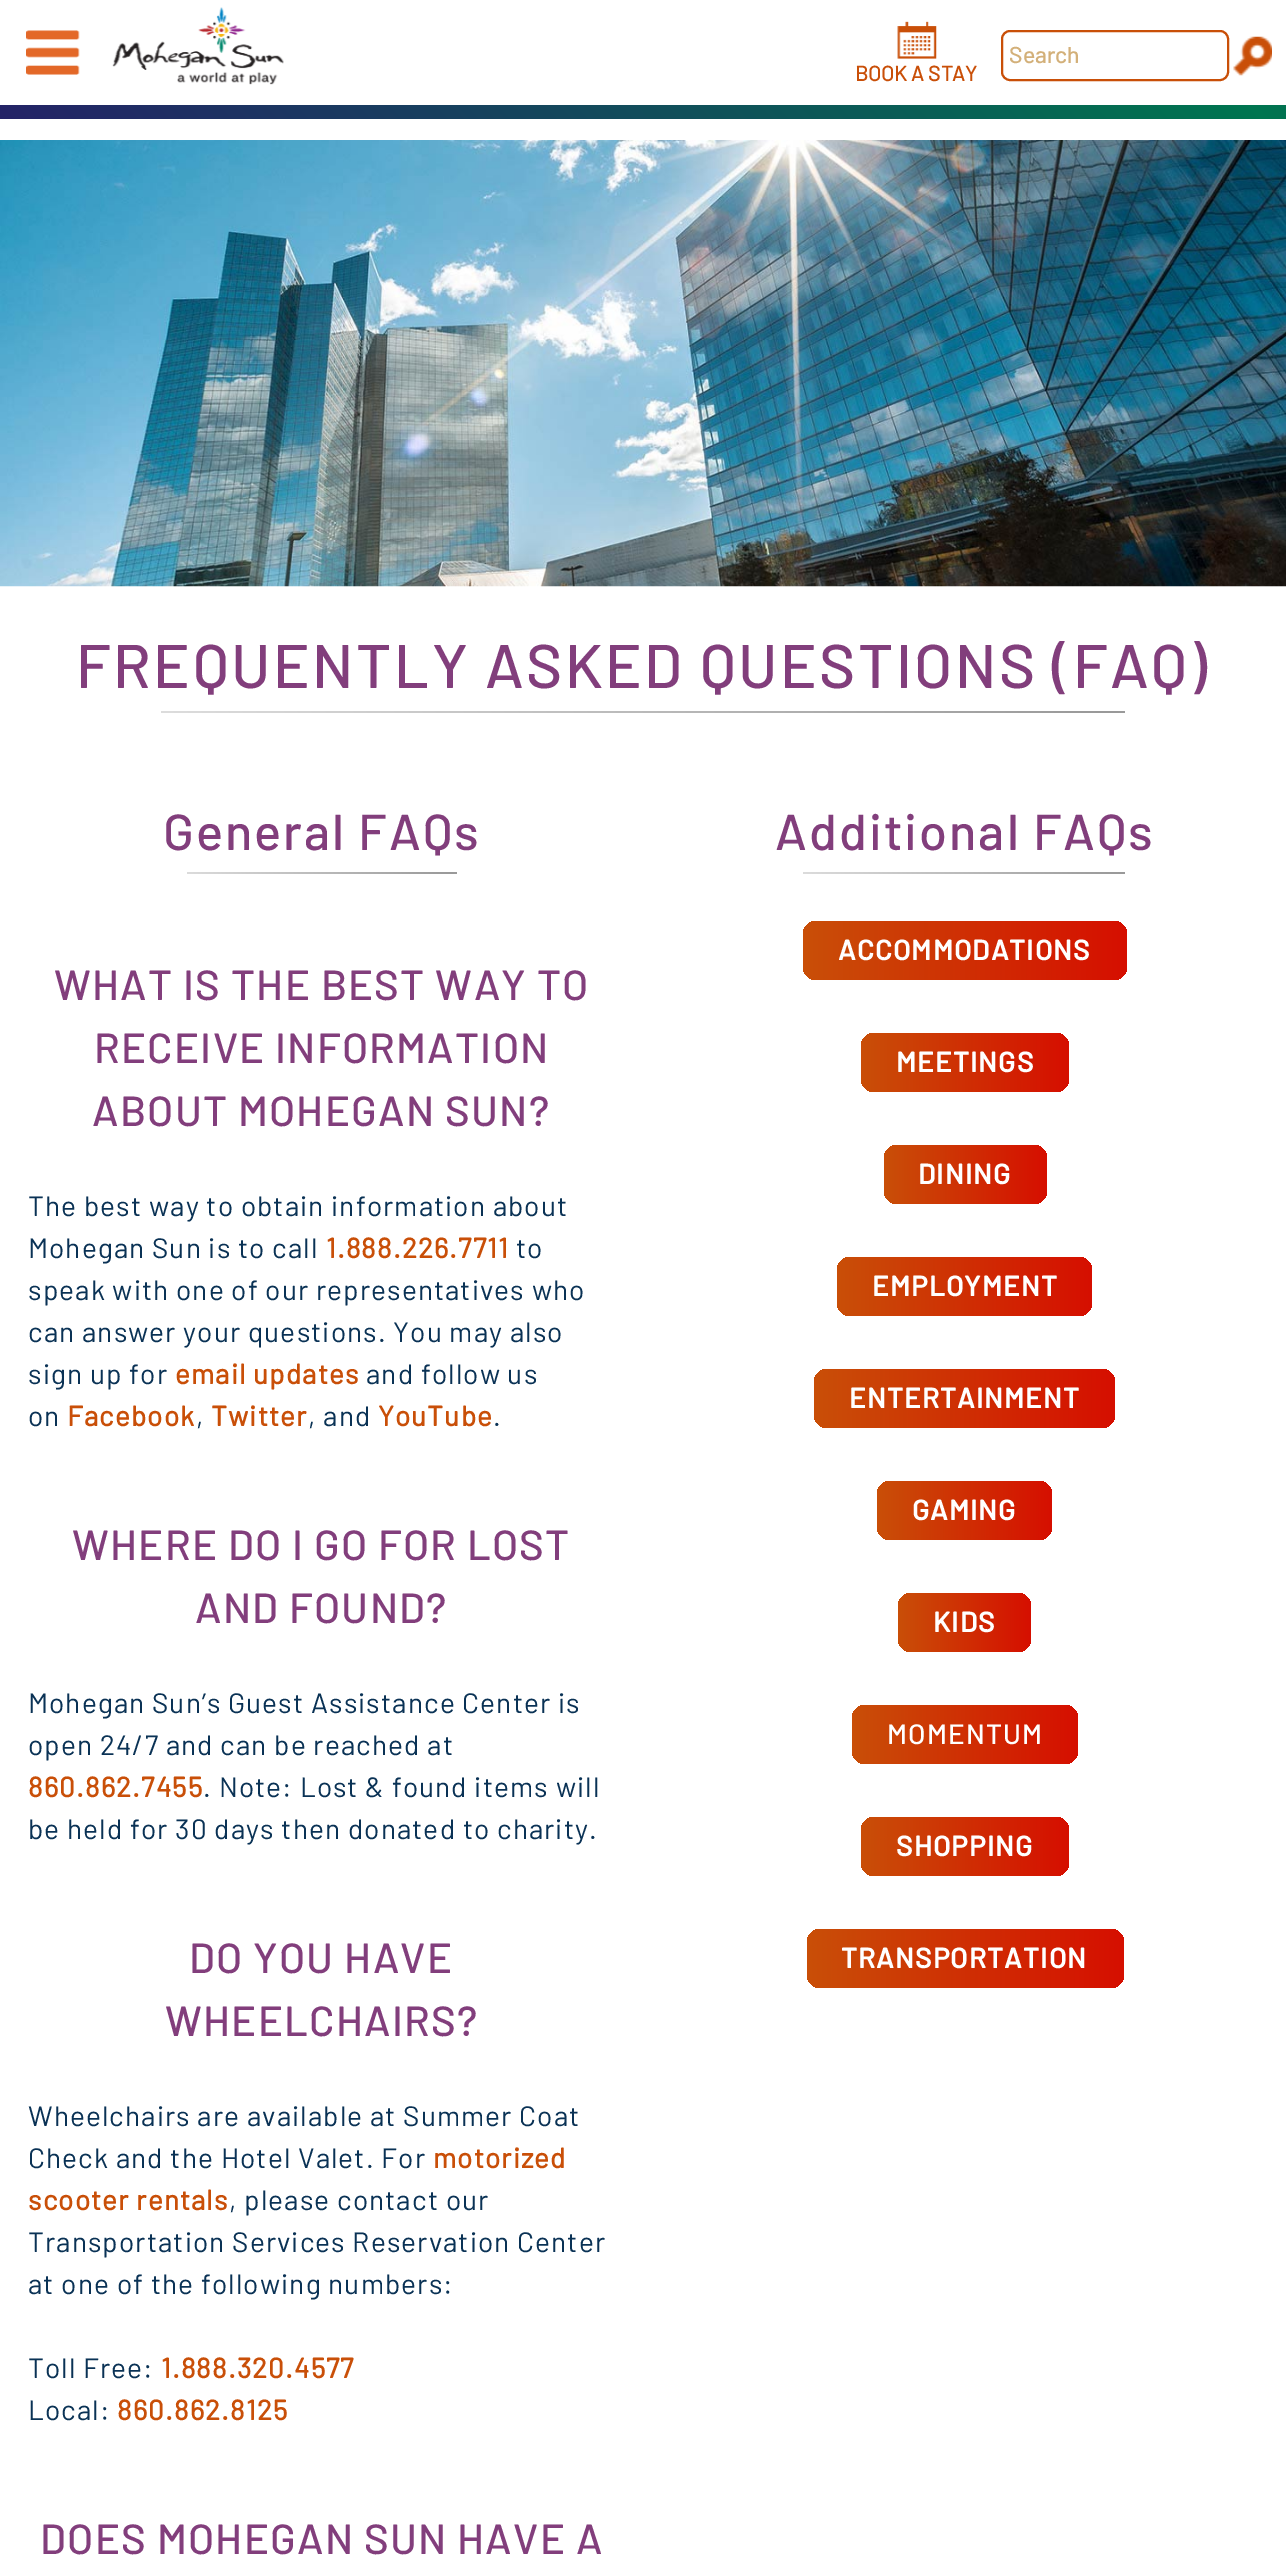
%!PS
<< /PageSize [1286 2562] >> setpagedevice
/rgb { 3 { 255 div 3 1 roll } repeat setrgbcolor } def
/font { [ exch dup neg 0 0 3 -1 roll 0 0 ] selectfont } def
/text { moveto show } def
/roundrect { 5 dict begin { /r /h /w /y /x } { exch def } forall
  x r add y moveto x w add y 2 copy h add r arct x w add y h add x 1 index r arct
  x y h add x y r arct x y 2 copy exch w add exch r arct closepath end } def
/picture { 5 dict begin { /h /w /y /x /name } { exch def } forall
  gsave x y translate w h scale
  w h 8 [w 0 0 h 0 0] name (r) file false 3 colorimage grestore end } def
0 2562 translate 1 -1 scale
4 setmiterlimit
255 255 255 rgb
0 0 1286 2562 rectfill
(img_01.rgb) 26 30 54 45 picture
(img_02.rgb) 112 7 172 78 picture
201 79 8 rgb
2 setlinewidth
1002 31 226 49 8 roundrect stroke
(img_03.rgb) 1233 36 39 40 picture
(img_04.rgb) 897 21 40 38 picture
gsave 0 105 moveto 1286 0 rlineto 0 14 rlineto -1286 0 rlineto closepath clip newpath
<< /ShadingType 2 /ColorSpace /DeviceRGB /Coords [954 1101 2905 -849] /Extend [true true] /Function << /FunctionType 3 /Domain [0 1] /Functions [<< /FunctionType 2 /Domain [0 1] /C0 [0.145 0.129 0.404] /C1 [0 0.459 0.314] /N 1 >> << /FunctionType 2 /Domain [0 1] /C0 [0 0.459 0.314] /C1 [0.145 0.129 0.404] /N 1 >> << /FunctionType 2 /Domain [0 1] /C0 [0.145 0.129 0.404] /C1 [0 0.459 0.314] /N 1 >>] /Bounds [0.33 0.67] /Encode [0 1 0 1 0 1] >> >> shfill grestore
(img_05.rgb) 0 140 1286 447 picture
gsave 161 711 moveto 964 0 rlineto 0 2 rlineto -964 0 rlineto closepath clip newpath
<< /ShadingType 2 /ColorSpace /DeviceRGB /Coords [883 1438 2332 -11] /Extend [true true] /Function << /FunctionType 3 /Domain [0 1] /Functions [<< /FunctionType 2 /Domain [0 1] /C0 [0.867 0.867 0.867] /C1 [0.6 0.6 0.6] /N 1 >> << /FunctionType 2 /Domain [0 1] /C0 [0.6 0.6 0.6] /C1 [0.867 0.867 0.867] /N 1 >> << /FunctionType 2 /Domain [0 1] /C0 [0.867 0.867 0.867] /C1 [0.6 0.6 0.6] /N 1 >>] /Bounds [0.33 0.67] /Encode [0 1 0 1 0 1] >> >> shfill grestore
gsave 187 872 moveto 270 0 rlineto 0 2 rlineto -270 0 rlineto closepath clip newpath
<< /ShadingType 2 /ColorSpace /DeviceRGB /Coords [388 1078 795 671] /Extend [true true] /Function << /FunctionType 3 /Domain [0 1] /Functions [<< /FunctionType 2 /Domain [0 1] /C0 [0.867 0.867 0.867] /C1 [0.6 0.6 0.6] /N 1 >> << /FunctionType 2 /Domain [0 1] /C0 [0.6 0.6 0.6] /C1 [0.867 0.867 0.867] /N 1 >> << /FunctionType 2 /Domain [0 1] /C0 [0.867 0.867 0.867] /C1 [0.6 0.6 0.6] /N 1 >>] /Bounds [0.33 0.67] /Encode [0 1 0 1 0 1] >> >> shfill grestore
gsave 803 872 moveto 322 0 rlineto 0 2 rlineto -322 0 rlineto closepath clip newpath
<< /ShadingType 2 /ColorSpace /DeviceRGB /Coords [1043 1117 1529 631] /Extend [true true] /Function << /FunctionType 3 /Domain [0 1] /Functions [<< /FunctionType 2 /Domain [0 1] /C0 [0.867 0.867 0.867] /C1 [0.6 0.6 0.6] /N 1 >> << /FunctionType 2 /Domain [0 1] /C0 [0.6 0.6 0.6] /C1 [0.867 0.867 0.867] /N 1 >> << /FunctionType 2 /Domain [0 1] /C0 [0.867 0.867 0.867] /C1 [0.6 0.6 0.6] /N 1 >>] /Bounds [0.33 0.67] /Encode [0 1 0 1 0 1] >> >> shfill grestore
gsave 803 921 324 59 14 roundrect clip newpath
<< /ShadingType 2 /ColorSpace /DeviceRGB /Coords [803 950 1127 950] /Extend [true true] /Function << /FunctionType 2 /Domain [0 1] /C0 [0.788 0.31 0.031] /C1 [0.839 0.059 0] /N 1 >> >> shfill grestore
gsave 861 1033 208 59 14 roundrect clip newpath
<< /ShadingType 2 /ColorSpace /DeviceRGB /Coords [861 1062 1069 1062] /Extend [true true] /Function << /FunctionType 2 /Domain [0 1] /C0 [0.788 0.31 0.031] /C1 [0.839 0.059 0] /N 1 >> >> shfill grestore
gsave 884 1145 163 59 14 roundrect clip newpath
<< /ShadingType 2 /ColorSpace /DeviceRGB /Coords [884 1174 1047 1174] /Extend [true true] /Function << /FunctionType 2 /Domain [0 1] /C0 [0.788 0.31 0.031] /C1 [0.839 0.059 0] /N 1 >> >> shfill grestore
gsave 837 1257 255 59 14 roundrect clip newpath
<< /ShadingType 2 /ColorSpace /DeviceRGB /Coords [837 1286 1092 1286] /Extend [true true] /Function << /FunctionType 2 /Domain [0 1] /C0 [0.788 0.31 0.031] /C1 [0.839 0.059 0] /N 1 >> >> shfill grestore
gsave 814 1369 301 59 14 roundrect clip newpath
<< /ShadingType 2 /ColorSpace /DeviceRGB /Coords [814 1398 1115 1398] /Extend [true true] /Function << /FunctionType 2 /Domain [0 1] /C0 [0.788 0.31 0.031] /C1 [0.839 0.059 0] /N 1 >> >> shfill grestore
gsave 877 1481 175 59 14 roundrect clip newpath
<< /ShadingType 2 /ColorSpace /DeviceRGB /Coords [877 1510 1052 1510] /Extend [true true] /Function << /FunctionType 2 /Domain [0 1] /C0 [0.788 0.31 0.031] /C1 [0.839 0.059 0] /N 1 >> >> shfill grestore
gsave 898 1593 133 59 14 roundrect clip newpath
<< /ShadingType 2 /ColorSpace /DeviceRGB /Coords [898 1622 1031 1622] /Extend [true true] /Function << /FunctionType 2 /Domain [0 1] /C0 [0.788 0.31 0.031] /C1 [0.839 0.059 0] /N 1 >> >> shfill grestore
gsave 852 1705 226 59 14 roundrect clip newpath
<< /ShadingType 2 /ColorSpace /DeviceRGB /Coords [852 1734 1078 1734] /Extend [true true] /Function << /FunctionType 2 /Domain [0 1] /C0 [0.788 0.31 0.031] /C1 [0.839 0.059 0] /N 1 >> >> shfill grestore
gsave 861 1817 208 59 14 roundrect clip newpath
<< /ShadingType 2 /ColorSpace /DeviceRGB /Coords [861 1846 1069 1846] /Extend [true true] /Function << /FunctionType 2 /Domain [0 1] /C0 [0.788 0.31 0.031] /C1 [0.839 0.059 0] /N 1 >> >> shfill grestore
gsave 807 1929 317 59 14 roundrect clip newpath
<< /ShadingType 2 /ColorSpace /DeviceRGB /Coords [807 1958 1124 1958] /Extend [true true] /Function << /FunctionType 2 /Domain [0 1] /C0 [0.788 0.31 0.031] /C1 [0.839 0.059 0] /N 1 >> >> shfill grestore
/Barlow-Medium 23 font
211 176 121 rgb
(Search) 1009 63 text
/Barlow-Bold 21 font
201 79 8 rgb
(BOOK A STAY) 855 81 text
/Barlow-Medium 61.6 font
130 62 124 rgb
76 688 moveto 2.45 0 (FREQUENTLY ASKED QUESTIONS \(FAQ\)) ashow
/Barlow-Medium 50.5 font
163 850 moveto 2 0 (General FAQs) ashow
/Barlow-Medium 42 font
54 1000 moveto 1.25 0 (WHAT IS THE BEST WAY TO) ashow
94 1063 moveto 1.25 0 (RECEIVE INFORMATION) ashow
92 1126 moveto 1.25 0 (ABOUT MOHEGAN SUN?) ashow
/Barlow-Regular 28 font
10 50 85 rgb
28 1216 moveto 1.1 0 (The best way to obtain information about) ashow
28 1258 moveto 1.1 0 (Mohegan Sun is to call) ashow
/Barlow-Bold 28 font
201 79 8 rgb
326 1258 moveto 1.1 0 (1.888.226.7711) ashow
/Barlow-Regular 28 font
10 50 85 rgb
516 1258 moveto 1.1 0 (to) ashow
28 1300 moveto 1.1 0 (speak with one of our representatives who) ashow
28 1342 moveto 1.1 0 (can answer your questions. You may also) ashow
28 1384 moveto 1.1 0 (sign up for) ashow
/Barlow-Bold 28 font
201 79 8 rgb
175 1384 moveto 1.1 0 (email updates) ashow
/Barlow-Regular 28 font
10 50 85 rgb
366 1384 moveto 1.1 0 (and follow us) ashow
28 1426 moveto 1.1 0 (on) ashow
/Barlow-Bold 28 font
201 79 8 rgb
67 1426 moveto 1.1 0 (Facebook) ashow
/Barlow-Regular 28 font
10 50 85 rgb
196 1426 moveto 1.1 0 (,) ashow
/Barlow-Bold 28 font
201 79 8 rgb
211 1426 moveto 1.1 0 (Twitter) ashow
/Barlow-Regular 28 font
10 50 85 rgb
308 1426 moveto 1.1 0 (, and) ashow
/Barlow-Bold 28 font
201 79 8 rgb
378 1426 moveto 1.1 0 (YouTube) ashow
/Barlow-Regular 28 font
10 50 85 rgb
493 1426 moveto 1.1 0 (.) ashow
/Barlow-Medium 42 font
130 62 124 rgb
72 1560 moveto 1.25 0 (WHERE DO I GO FOR LOST) ashow
195 1623 moveto 1.25 0 (AND FOUND?) ashow
/Barlow-Regular 28 font
10 50 85 rgb
28 1713 moveto 1.1 0 (Mohegan Sun’s Guest Assistance Center is) ashow
28 1755 moveto 1.1 0 (open 24/7 and can be reached at) ashow
/Barlow-Bold 28 font
201 79 8 rgb
28 1797 moveto 1.1 0 (860.862.7455) ashow
/Barlow-Regular 28 font
10 50 85 rgb
203 1797 moveto 1.1 0 (. Note: Lost & found items will) ashow
28 1839 moveto 1.1 0 (be held for 30 days then donated to charity.) ashow
/Barlow-Medium 42 font
130 62 124 rgb
189 1973 moveto 1.25 0 (DO YOU HAVE) ashow
165 2036 moveto 1.25 0 (WHEELCHAIRS?) ashow
/Barlow-Regular 28 font
10 50 85 rgb
28 2126 moveto 1.1 0 (Wheelchairs are available at Summer Coat) ashow
28 2168 moveto 1.1 0 (Check and the Hotel Valet. For) ashow
/Barlow-Bold 28 font
201 79 8 rgb
433 2168 moveto 1.1 0 (motorized) ashow
28 2210 moveto 1.1 0 (scooter rentals) ashow
/Barlow-Regular 28 font
10 50 85 rgb
229 2210 moveto 1.1 0 (, please contact our) ashow
28 2252 moveto 1.1 0 (Transportation Services Reservation Center) ashow
28 2294 moveto 1.1 0 (at one of the following numbers:) ashow
28 2378 moveto 1.1 0 (Toll Free:) ashow
/Barlow-Bold 28 font
201 79 8 rgb
161 2378 moveto 1.1 0 (1.888.320.4577) ashow
/Barlow-Regular 28 font
10 50 85 rgb
28 2420 moveto 1.1 0 (Local:) ashow
/Barlow-Bold 28 font
201 79 8 rgb
117 2420 moveto 1.1 0 (860.862.8125) ashow
/Barlow-Medium 42 font
130 62 124 rgb
40 2554 moveto 1.25 0 (DOES MOHEGAN SUN HAVE A) ashow
/Barlow-Medium 50.5 font
775 850 moveto 2 0 (Additional FAQs) ashow
/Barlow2-Bold 28 font
255 255 255 rgb
838 960 moveto 1.1 0 (ACCOMMODATIONS) ashow
896 1072 moveto 1.1 0 (MEETINGS) ashow
918 1184 moveto 1.1 0 (DINING) ashow
872 1296 moveto 1.1 0 (EMPLOYMENT) ashow
849 1408 moveto 1.1 0 (ENTERTAINMENT) ashow
912 1520 moveto 1.1 0 (GAMING) ashow
933 1632 moveto 1.1 0 (KIDS) ashow
/Barlow-Medium 28 font
887 1744 moveto 1.1 0 (MOMENTUM) ashow
/Barlow2-Bold 28 font
896 1856 moveto 1.1 0 (SHOPPING) ashow
841 1968 moveto 1.1 0 (TRANSPORTATION) ashow
showpage
